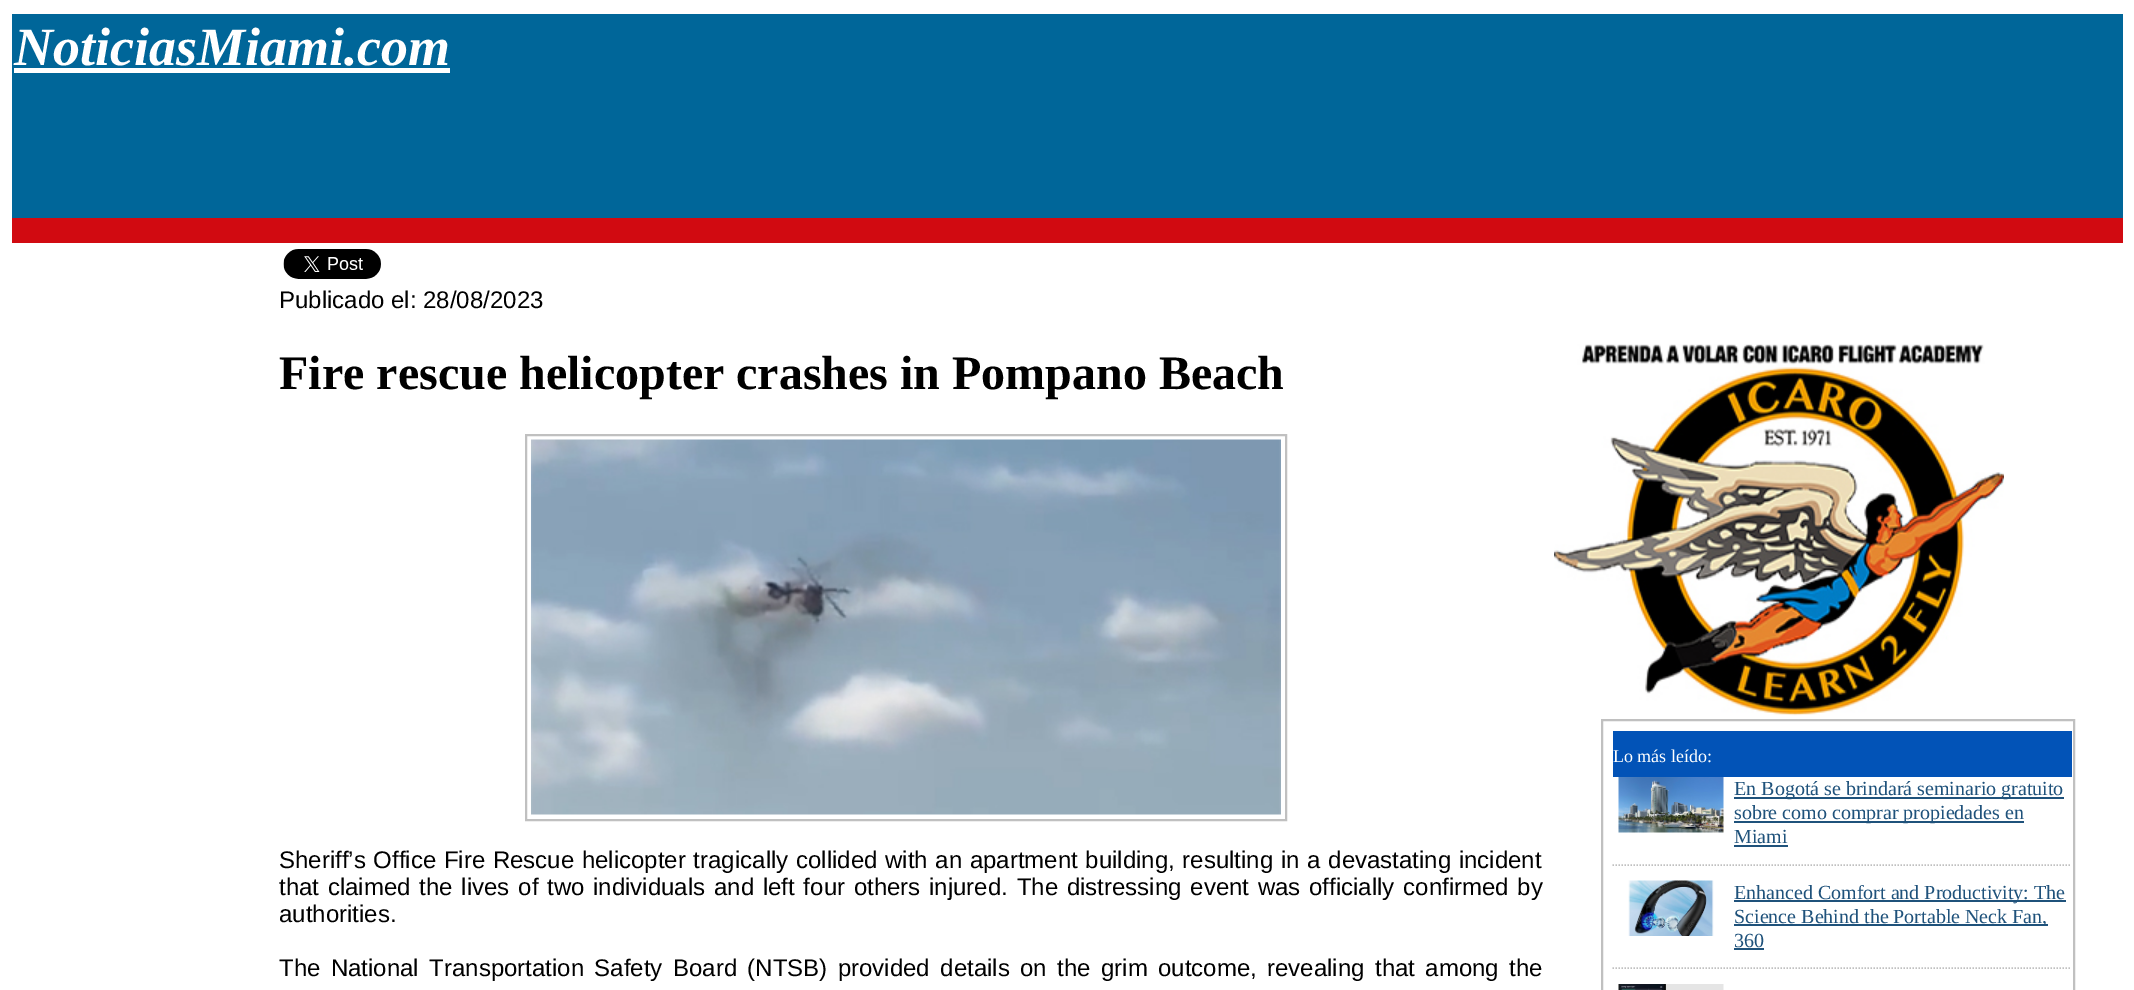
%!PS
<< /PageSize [2134 990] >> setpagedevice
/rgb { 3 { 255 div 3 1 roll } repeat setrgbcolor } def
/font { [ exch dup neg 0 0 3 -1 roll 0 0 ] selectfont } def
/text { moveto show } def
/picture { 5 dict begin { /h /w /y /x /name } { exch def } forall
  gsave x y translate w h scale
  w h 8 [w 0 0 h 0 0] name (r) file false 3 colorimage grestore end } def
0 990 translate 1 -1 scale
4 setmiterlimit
255 255 255 rgb
0 0 2134 990 rectfill
0 102 153 rgb
12 14 2111 204 rectfill
255 255 255 rgb
14 68 436 5 rectfill
209 10 17 rgb
12 218 2111 25 rectfill
(img_01.rgb) 283 249 98 30 picture
192 192 192 rgb
2 setlinewidth
526 435 760 385 rectstroke
(img_02.rgb) 531 439 750 376 picture
(img_03.rgb) 1554 344 450 372 picture
1602 720 472 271 rectstroke
2 83 183 rgb
1613 731 459 46 rectfill
(img_04.rgb) 1618 777 106 56 picture
31 82 123 rgb
1734 797 330 2 rectfill
1734 821 290 2 rectfill
1734 845 54 2 rectfill
192 192 192 rgb
1.5 setlinewidth
[1.5 1.5] 0 setdash
1612.5 865 moveto 459 0 rlineto stroke
(img_05.rgb) 1628 880 86 56 picture
31 82 123 rgb
1734 900 332 2 rectfill
1734 924 314 2 rectfill
1734 948 30 2 rectfill
192 192 192 rgb
1612.5 968 moveto 459 0 rlineto stroke
(img_06.rgb) 1618 984 106 6 picture
/LiberationSerif-BoldItalic 54 font
255 255 255 rgb
(NoticiasMiami.com) 14 65 text
/LiberationSans-Regular 24 font
0 0 0 rgb
(Publicado el: 28/08/2023) 279 308 text
/LiberationSerif-Bold 48 font
(Fire rescue helicopter crashes in Pompano Beach) 279 389 text
/LiberationSans-Regular 24 font
279 868 moveto 1 0 32 (Sheriff’s Office Fire Rescue helicopter tragically collided with an apartment building, resulting in a devastating incident) widthshow
279 895 moveto 2.1 0 32 (that claimed the lives of two individuals and left four others injured. The distressing event was officially confirmed by) widthshow
(authorities.) 279 922 text
279 976 moveto 3.75 0 32 (The National Transportation Safety Board \(NTSB\) provided details on the grim outcome, revealing that among the) widthshow
/LiberationSerif-Regular 18 font
255 255 255 rgb
(Lo más leído:) 1613 762 text
/LiberationSerif-Regular 20 font
31 82 123 rgb
(En Bogotá se brindará seminario gratuito) 1734 795 text
(sobre como comprar propiedades en) 1734 819 text
(Miami) 1734 843 text
(Enhanced Comfort and Productivity: The) 1734 899 text
(Science Behind the Portable Neck Fan,) 1734 923 text
(360) 1734 947 text
showpage
